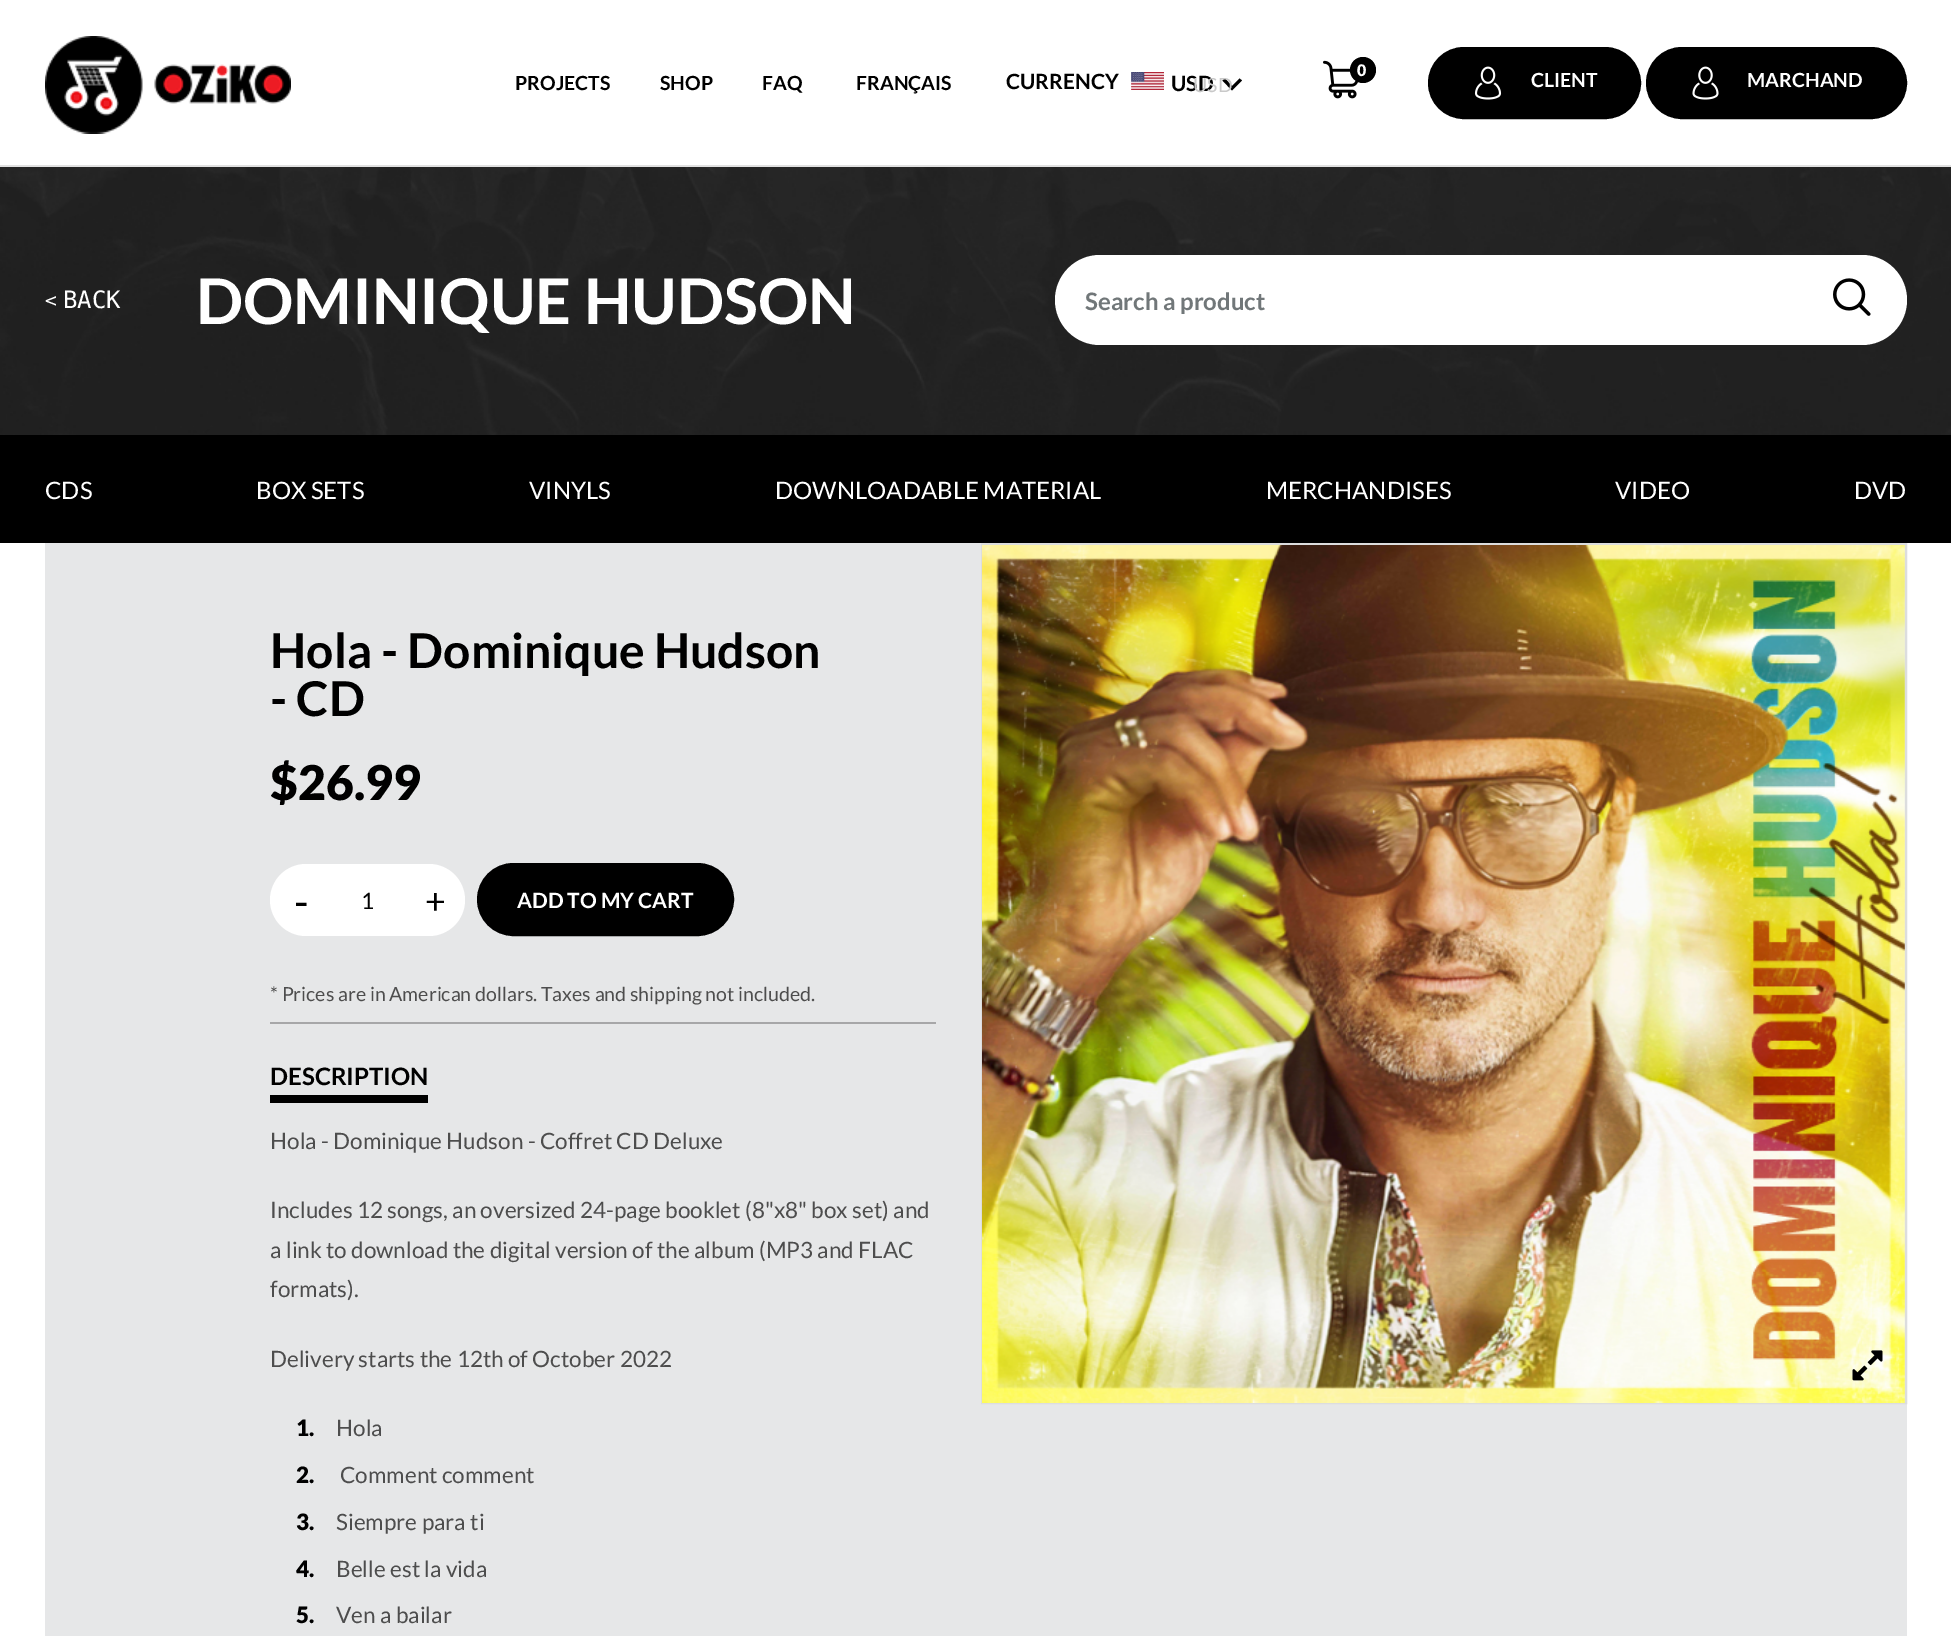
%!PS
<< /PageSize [1951 1636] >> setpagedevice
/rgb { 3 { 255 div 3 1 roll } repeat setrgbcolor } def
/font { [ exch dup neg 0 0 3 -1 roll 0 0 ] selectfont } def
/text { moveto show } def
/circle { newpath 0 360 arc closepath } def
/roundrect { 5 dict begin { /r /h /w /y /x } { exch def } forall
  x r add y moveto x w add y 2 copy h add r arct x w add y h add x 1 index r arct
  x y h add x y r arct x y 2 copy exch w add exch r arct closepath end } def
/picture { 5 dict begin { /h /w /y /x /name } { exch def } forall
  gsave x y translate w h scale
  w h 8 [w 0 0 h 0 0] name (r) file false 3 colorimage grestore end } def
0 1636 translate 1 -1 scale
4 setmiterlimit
255 255 255 rgb
0 0 1951 1636 rectfill
225 225 225 rgb
0 165 1951 2 rectfill
(img_01.rgb) 45 36 246 98 picture
(img_02.rgb) 1323 60 35 39 picture
0 0 0 rgb
1363 70 13 circle fill
(img_03.rgb) 1131 72 33 18 picture
1232 90.5 moveto 10 -10 rlineto -2.5 -2 rlineto -7.5 7.5 rlineto -7 -7.5 rlineto -2.5 2 rlineto closepath fill
1429.5 48.5 210 69 34.5 roundrect gsave fill grestore
3 setlinewidth
stroke
(img_04.rgb) 1474 66 28 34 picture
1647.5 48.5 258 69 34.5 roundrect gsave fill grestore
stroke
(img_05.rgb) 1692 66 27 34 picture
(img_06.rgb) 0 167 1951 268 picture
255 255 255 rgb
1055 255 852 90 45 roundrect fill
(img_07.rgb) 1833 278 38 38 picture
0 0 0 rgb
0 435 1951 108 rectfill
230 231 232 rgb
45 543 1862 1093 rectfill
255 255 255 rgb
270 864 195 72 36 roundrect fill
0 0 0 rgb
478.5 864.5 254 70 35 roundrect gsave fill grestore
stroke
167 167 168 rgb
270 1022 666 2 rectfill
0 0 0 rgb
270 1095 158 8 rectfill
220 221 222 rgb
2 setlinewidth
982 544 924 859 rectstroke
(img_08.rgb) 982 545 923 858 picture
(img_09.rgb) 1852 1350 31 31 picture
/Lato-Black 16 font
255 255 255 rgb
(0) 1357 76 text
/Lato-Bold 19.5 font
0 0 0 rgb
(PROJECTS) 515 90 text
(SHOP) 660 90 text
(FAQ) 762 90 text
(FRANÇAIS) 856 90 text
/Lato-Bold 21 font
(CURRENCY) 1006 89 text
(USD) 1171 91 text
/Lato-Regular 19.5 font
201 201 201 rgb
(USD) 1193 92 text
/Lato-Bold 19.5 font
255 255 255 rgb
(CLIENT) 1531 87 text
(MARCHAND) 1747 87 text
/DejaVuSansMono-Regular 19.5 font
(<) 45 307 text
/DejaVuSansMono-Regular 24 font
(BACK) 63 308 text
/Lato-Bold 63 font
(DOMINIQUE HUDSON) 196 324 text
/Lato-Bold 24 font
113 119 121 rgb
(Search a product) 1085 310 text
/Lato-Regular 24 font
255 255 255 rgb
(CDS) 45 499 text
(BOX SETS) 256 499 text
(VINYLS) 529 499 text
(DOWNLOADABLE MATERIAL) 775 499 text
(MERCHANDISES) 1266 499 text
(VIDEO) 1615 499 text
(DVD) 1854 499 text
/Lato-Bold 48 font
0 0 0 rgb
(Hola - Dominique Hudson) 270 668 text
(- CD) 270 716 text
/Lato-Black 48 font
($26.99) 270 800 text
/Lato-Regular 42 font
(-) 294 917 text
/Lato-Regular 22.5 font
(1) 361 909 text
/Lato-Regular 36 font
(+) 425 914 text
/Lato-Bold 21 font
255 255 255 rgb
(ADD TO MY CART) 517 908 text
/Lato-Regular 19.5 font
77 77 77 rgb
(* Prices are in American dollars. Taxes and shipping not included.) 270 1001 text
/Lato-Bold 24 font
0 0 0 rgb
(DESCRIPTION) 270 1085 text
/Lato-Regular 22.5 font
77 77 77 rgb
(Hola - Dominique Hudson - Coffret CD Deluxe) 270 1149 text
(Includes 12 songs, an oversized 24-page booklet \(8"x8" box set\) and) 270 1218 text
(a link to download the digital version of the album \(MP3 and FLAC) 270 1258 text
(formats\).) 270 1297 text
(Delivery starts the 12th of October 2022) 270 1367 text
/Lato-Black 22.5 font
0 0 0 rgb
(1.) 296 1436 text
/Lato-Regular 22.5 font
77 77 77 rgb
(Hola) 336 1436 text
/Lato-Black 22.5 font
0 0 0 rgb
(2.) 296 1483 text
/Lato-Regular 22.5 font
77 77 77 rgb
(Comment comment) 340 1483 text
/Lato-Black 22.5 font
0 0 0 rgb
(3.) 296 1530 text
/Lato-Regular 22.5 font
77 77 77 rgb
(Siempre para ti) 336 1530 text
/Lato-Black 22.5 font
0 0 0 rgb
(4.) 296 1577 text
/Lato-Regular 22.5 font
77 77 77 rgb
(Belle est la vida) 336 1577 text
/Lato-Black 22.5 font
0 0 0 rgb
(5.) 296 1623 text
/Lato-Regular 22.5 font
77 77 77 rgb
(Ven a bailar) 336 1623 text
showpage
